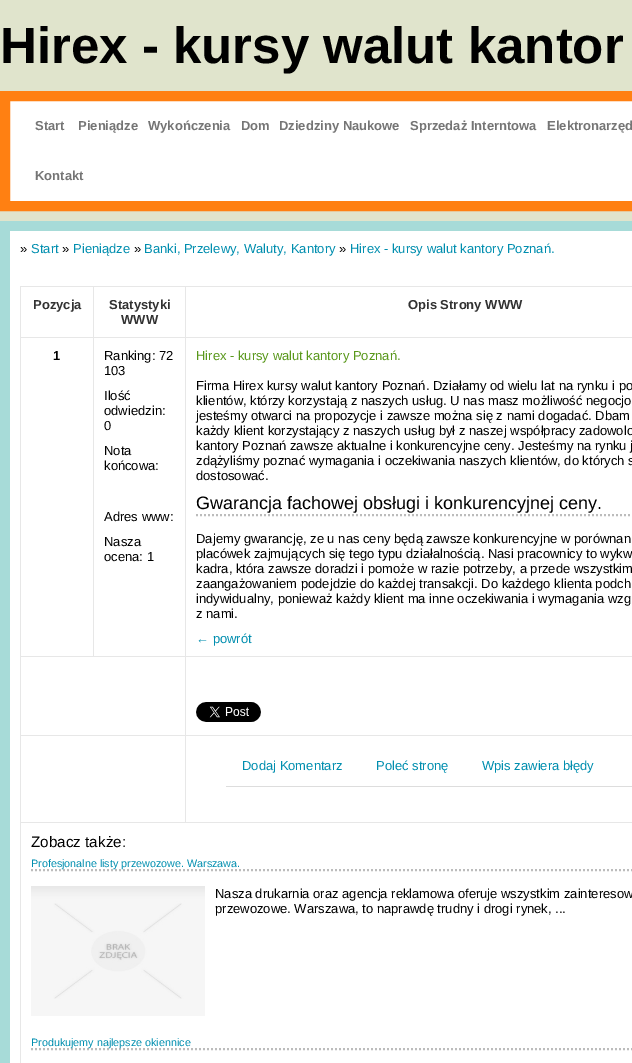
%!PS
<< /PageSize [632 1063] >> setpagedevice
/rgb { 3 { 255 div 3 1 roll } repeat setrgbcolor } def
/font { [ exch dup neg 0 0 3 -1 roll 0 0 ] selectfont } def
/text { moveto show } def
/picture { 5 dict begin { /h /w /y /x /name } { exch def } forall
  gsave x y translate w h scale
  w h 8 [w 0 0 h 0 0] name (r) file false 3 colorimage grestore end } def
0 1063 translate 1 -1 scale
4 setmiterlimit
224 228 204 rgb
0 0 632 1063 rectfill
255 255 255 rgb
5 96 moveto 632 0 rlineto 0 110 rlineto -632 0 rlineto closepath gsave fill grestore
255 128 18 rgb
10 setlinewidth
stroke
255 255 255 rgb
10 231 622 832 rectfill
167 219 216 rgb
0 221 10 842 rectfill
10 221 622 10 rectfill
231 231 231 rgb
185 286 447 1 rectfill
185 337 447 1 rectfill
185 656 447 1 rectfill
185 735 447 1 rectfill
20 822 612 1 rectfill
185 735 1 88 rectfill
20 735 166 1 rectfill
185 656 1 80 rectfill
20 656 166 1 rectfill
185 337 1 320 rectfill
93 337 93 1 rectfill
185 286 1 52 rectfill
93 286 93 1 rectfill
93 337 1 320 rectfill
20 337 74 1 rectfill
93 286 1 52 rectfill
20 286 74 1 rectfill
20 822 1 241 rectfill
20 735 1 88 rectfill
20 656 1 80 rectfill
20 337 1 320 rectfill
20 286 1 52 rectfill
188 188 188 rgb
2 setlinewidth
[2 2] 0 setdash
196 515 moveto 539 0 rlineto stroke
(img_01.rgb) 196 702 65 20 picture
221 221 221 rgb
226 786 406 1 rectfill
188 188 188 rgb
31 870 moveto 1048 0 rlineto stroke
(img_02.rgb) 31 886 174 130 picture
31 1049 moveto 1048 0 rlineto stroke
/LiberationSans-Bold 51 font
0 0 0 rgb
(Hirex - kursy walut kantor) 0 63 text
/LiberationSans-Bold 13 font
117 117 117 rgb
(Start) 35 130 text
(Pieniądze) 78 130 text
(Wykończenia) 148 130 text
(Dom) 241 130 text
(Dziedziny Naukowe) 279 130 text
(Sprzedaż Interntowa) 410 130 text
(Elektronarzęd) 547 130 text
(Kontakt) 35 180 text
/LiberationSans-Regular 13 font
0 0 0 rgb
(») 20 253 text
0 142 175 rgb
(Start) 31 253 text
0 0 0 rgb
(») 62 253 text
0 142 175 rgb
(Pieniądze) 73 253 text
0 0 0 rgb
(») 134 253 text
0 142 175 rgb
(Banki, Przelewy, Waluty, Kantory) 144 253 text
0 0 0 rgb
(») 339 253 text
0 142 175 rgb
(Hirex - kursy walut kantory Poznań.) 350 253 text
/LiberationSans-Bold 13 font
50 50 50 rgb
(Pozycja) 33 309 text
(Statystyki) 109 309 text
(WWW) 121 324 text
(Opis Strony WWW) 408 309 text
0 0 0 rgb
(1) 53 360 text
/LiberationSans-Regular 13 font
(Ranking: 72) 104 360 text
(103) 104 375 text
(Ilość) 104 400 text
(odwiedzin:) 104 415 text
(0) 104 430 text
(Nota) 104 455 text
(końcowa:) 104 470 text
(Adres www:) 104 521 text
(Nasza) 104 546 text
(ocena: 1) 104 561 text
89 152 27 rgb
(Hirex - kursy walut kantory Poznań.) 196 360 text
0 0 0 rgb
(Firma Hirex kursy walut kantory Poznań. Działamy od wielu lat na rynku i po) 196 390 text
(klientów, którzy korzystają z naszych usług. U nas masz możliwość negocjo) 196 405 text
(jesteśmy otwarci na propozycje i zawsze można się z nami dogadać. Dbam) 196 420 text
(każdy klient korzystający z naszych usług był z naszej współpracy zadowolo) 196 435 text
(kantory Poznań zawsze aktualne i konkurencyjne ceny. Jesteśmy na rynku j) 196 450 text
(zdążyliśmy poznać wymagania i oczekiwania naszych klientów, do których s) 196 465 text
(dostosować.) 196 480 text
/LiberationSans-Regular 18 font
(Gwarancja fachowej obsługi i konkurencyjnej ceny.) 196 509 text
/LiberationSans-Regular 13 font
(Dajemy gwarancję, ze u nas ceny będą zawsze konkurencyjne w porównan) 196 543 text
(placówek zajmujących się tego typu działalnością. Nasi pracownicy to wykw) 196 558 text
(kadra, która zawsze doradzi i pomoże w razie potrzeby, a przede wszystkim) 196 573 text
(zaangażowaniem podejdzie do każdej transakcji. Do każdego klienta podch) 196 588 text
(indywidualny, ponieważ każdy klient ma inne oczekiwania i wymagania wzg) 196 603 text
(z nami.) 196 618 text
0 142 175 rgb
(← powrót) 196 643 text
(Dodaj Komentarz) 242 770 text
(Poleć stronę) 376 770 text
(Wpis zawiera błędy) 482 770 text
/LiberationSans-Regular 15.25 font
0 0 0 rgb
(Zobacz także:) 31 847 text
/LiberationSans-Regular 10.75 font
0 142 175 rgb
(Profesjonalne listy przewozowe. Warszawa.) 31 867 text
/LiberationSans-Regular 13 font
0 0 0 rgb
(Nasza drukarnia oraz agencja reklamowa oferuje wszystkim zainteresow) 215 898 text
(przewozowe. Warszawa, to naprawdę trudny i drogi rynek, ...) 215 913 text
/LiberationSans-Regular 10.75 font
0 142 175 rgb
(Produkujemy najlepsze okiennice) 31 1046 text
showpage
